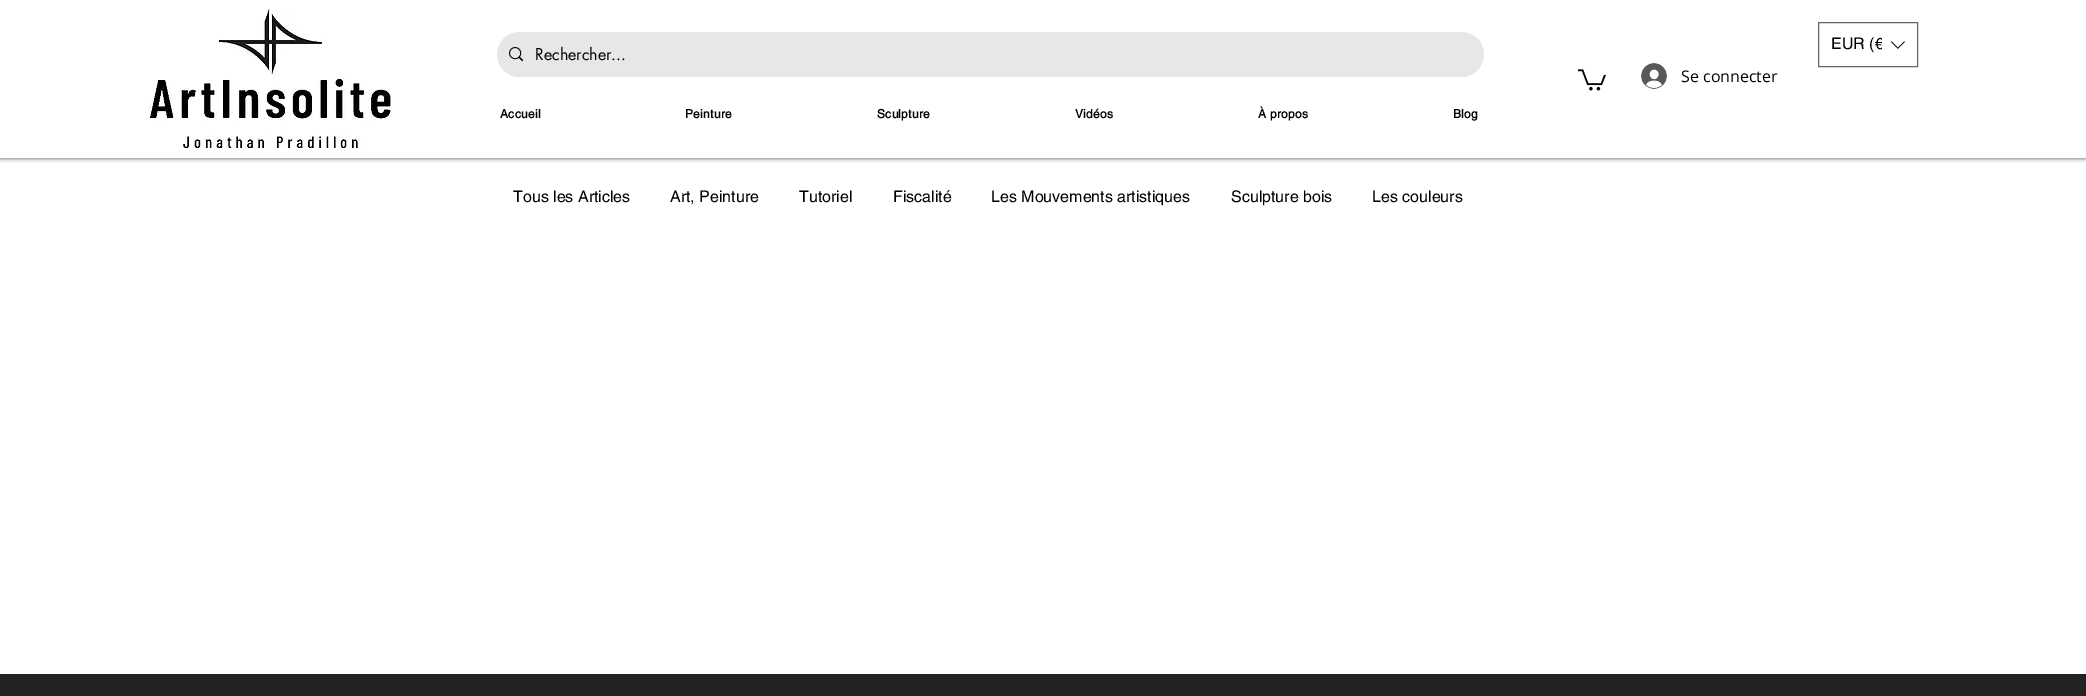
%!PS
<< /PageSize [2086 696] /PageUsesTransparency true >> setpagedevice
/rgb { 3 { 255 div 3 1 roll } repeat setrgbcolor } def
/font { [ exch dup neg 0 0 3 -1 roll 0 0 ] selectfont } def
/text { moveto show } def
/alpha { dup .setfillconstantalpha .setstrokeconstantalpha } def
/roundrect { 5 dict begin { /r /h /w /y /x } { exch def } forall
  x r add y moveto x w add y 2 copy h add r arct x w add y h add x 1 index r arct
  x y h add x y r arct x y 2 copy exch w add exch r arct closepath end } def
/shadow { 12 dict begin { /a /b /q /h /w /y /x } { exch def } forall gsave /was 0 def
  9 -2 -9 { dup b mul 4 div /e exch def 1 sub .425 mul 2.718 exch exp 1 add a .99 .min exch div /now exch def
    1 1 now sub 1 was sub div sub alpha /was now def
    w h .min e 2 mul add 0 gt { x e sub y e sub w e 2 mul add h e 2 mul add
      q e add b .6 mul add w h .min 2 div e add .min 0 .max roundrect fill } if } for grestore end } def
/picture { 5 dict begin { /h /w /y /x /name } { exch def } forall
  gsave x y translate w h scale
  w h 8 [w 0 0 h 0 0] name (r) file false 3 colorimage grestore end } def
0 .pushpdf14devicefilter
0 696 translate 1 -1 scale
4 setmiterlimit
255 255 255 rgb
0 0 2086 696 rectfill
gsave
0 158 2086 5 rectclip
0 0 0 rgb
0 0 2086 158 0 2.5 0.7 shadow
grestore
(img_01.rgb) 149 9 243 139 picture
232 230 230 rgb
497 32 987 45 22.5 roundrect fill
(img_02.rgb) 509 47 14 15 picture
102 102 102 rgb
1818.5 22.5 99 44 rectstroke
(img_03.rgb) 1890 41 15 8 picture
(img_04.rgb) 1578 69 28 22 picture
(img_05.rgb) 1641 63 26 26 picture
36 35 35 rgb
0 674 2086 22 rectfill
/futura-Regular 16 font
0 0 0 rgb
(Rechercher...) 535 60 text
gsave
1831 33 51 23 rectclip
/helvetica-Regular 16 font
(EUR \(€) 1831 49 text
grestore
/OpenSans-Regular 16 font
(Se connecter) 1681 82 text
/helvetica-Bold 12 font
500 118 moveto 0.25 0 (Accueil) ashow
685 118 moveto 0.25 0 (Peinture) ashow
877 118 moveto 0.25 0 (Sculpture) ashow
1075 118 moveto 0.25 0 (Vidéos) ashow
1258 118 moveto 0.25 0 (À propos) ashow
1453 118 moveto 0.25 0 (Blog) ashow
/helvetica-Regular 16 font
(Tous les Articles) 513 202 text
(Art, Peinture) 670 202 text
(Tutoriel) 799 202 text
(Fiscalité) 893 202 text
(Les Mouvements artistiques) 991 202 text
(Sculpture bois) 1231 202 text
(Les couleurs) 1372 202 text
.poppdf14devicefilter showpage
